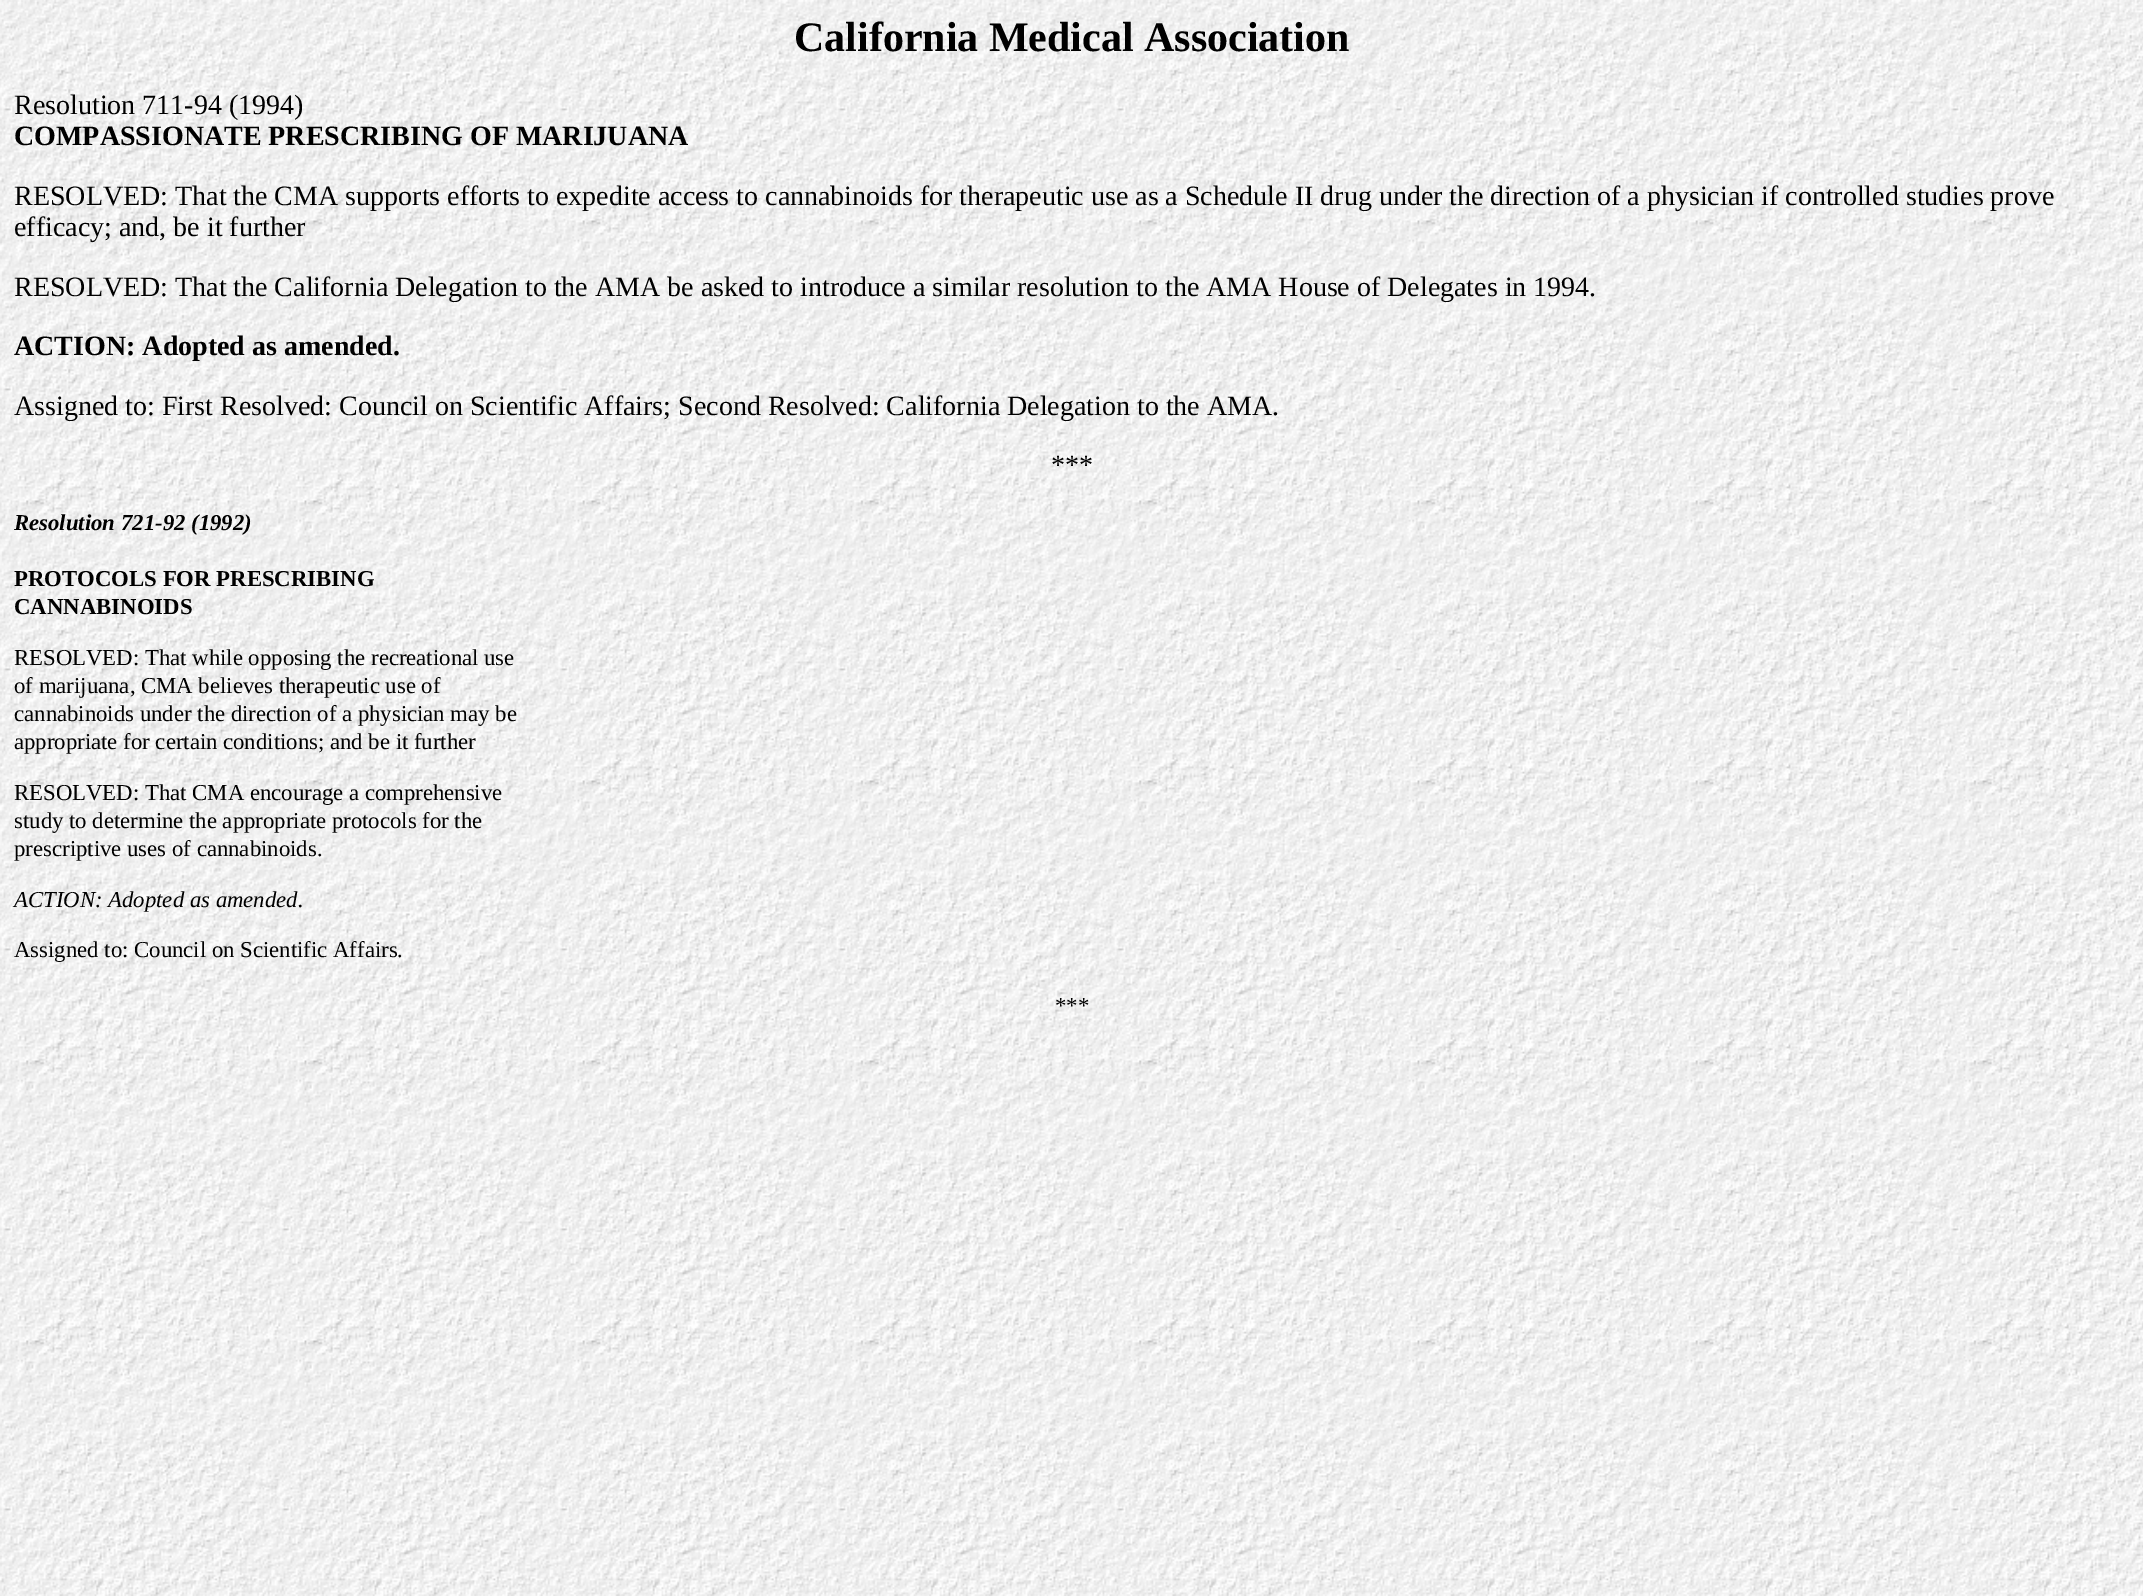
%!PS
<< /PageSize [2143 1596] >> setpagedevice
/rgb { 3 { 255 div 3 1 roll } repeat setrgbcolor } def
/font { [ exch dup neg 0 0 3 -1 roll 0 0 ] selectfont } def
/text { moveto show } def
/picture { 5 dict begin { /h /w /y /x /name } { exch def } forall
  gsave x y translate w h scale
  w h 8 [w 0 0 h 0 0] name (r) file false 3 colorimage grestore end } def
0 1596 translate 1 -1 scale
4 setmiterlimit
255 255 255 rgb
0 0 2143 1596 rectfill
(img_01.rgb) 0 0 2143 1596 picture
/LiberationSerif-Bold 42 font
0 0 0 rgb
(California Medical Association) 794 51 text
/LiberationSerif-Regular 28 font
(Resolution 711-94 \(1994\)) 14 114 text
/LiberationSerif-Bold 28 font
(COMPASSIONATE PRESCRIBING OF MARIJUANA) 14 145 text
/LiberationSerif-Regular 28 font
(RESOLVED: That the CMA supports efforts to expedite access to cannabinoids for therapeutic use as a Schedule II drug under the direction of a physician if controlled studies prove) 14 205 text
(efficacy; and, be it further) 14 236 text
(RESOLVED: That the California Delegation to the AMA be asked to introduce a similar resolution to the AMA House of Delegates in 1994.) 14 296 text
/LiberationSerif-Bold 28 font
(ACTION: Adopted as amended.) 14 355 text
/LiberationSerif-Regular 28 font
(Assigned to: First Resolved: Council on Scientific Affairs; Second Resolved: California Delegation to the AMA.) 14 415 text
(***) 1051 474 text
/LiberationSerif-BoldItalic 22.75 font
(Resolution 721-92 \(1992\)) 14 530 text
/LiberationSerif-Bold 22.75 font
(PROTOCOLS FOR PRESCRIBING) 14 586 text
(CANNABINOIDS) 14 614 text
/LiberationSerif-Regular 22.75 font
(RESOLVED: That while opposing the recreational use) 14 665 text
(of marijuana, CMA believes therapeutic use of) 14 693 text
(cannabinoids under the direction of a physician may be) 14 721 text
(appropriate for certain conditions; and be it further) 14 749 text
(RESOLVED: That CMA encourage a comprehensive) 14 800 text
(study to determine the appropriate protocols for the) 14 828 text
(prescriptive uses of cannabinoids.) 14 856 text
/LiberationSerif-Italic 22.75 font
(ACTION: Adopted as amended.) 14 907 text
/LiberationSerif-Regular 22.75 font
(Assigned to: Council on Scientific Affairs.) 14 957 text
(***) 1055 1013 text
showpage
